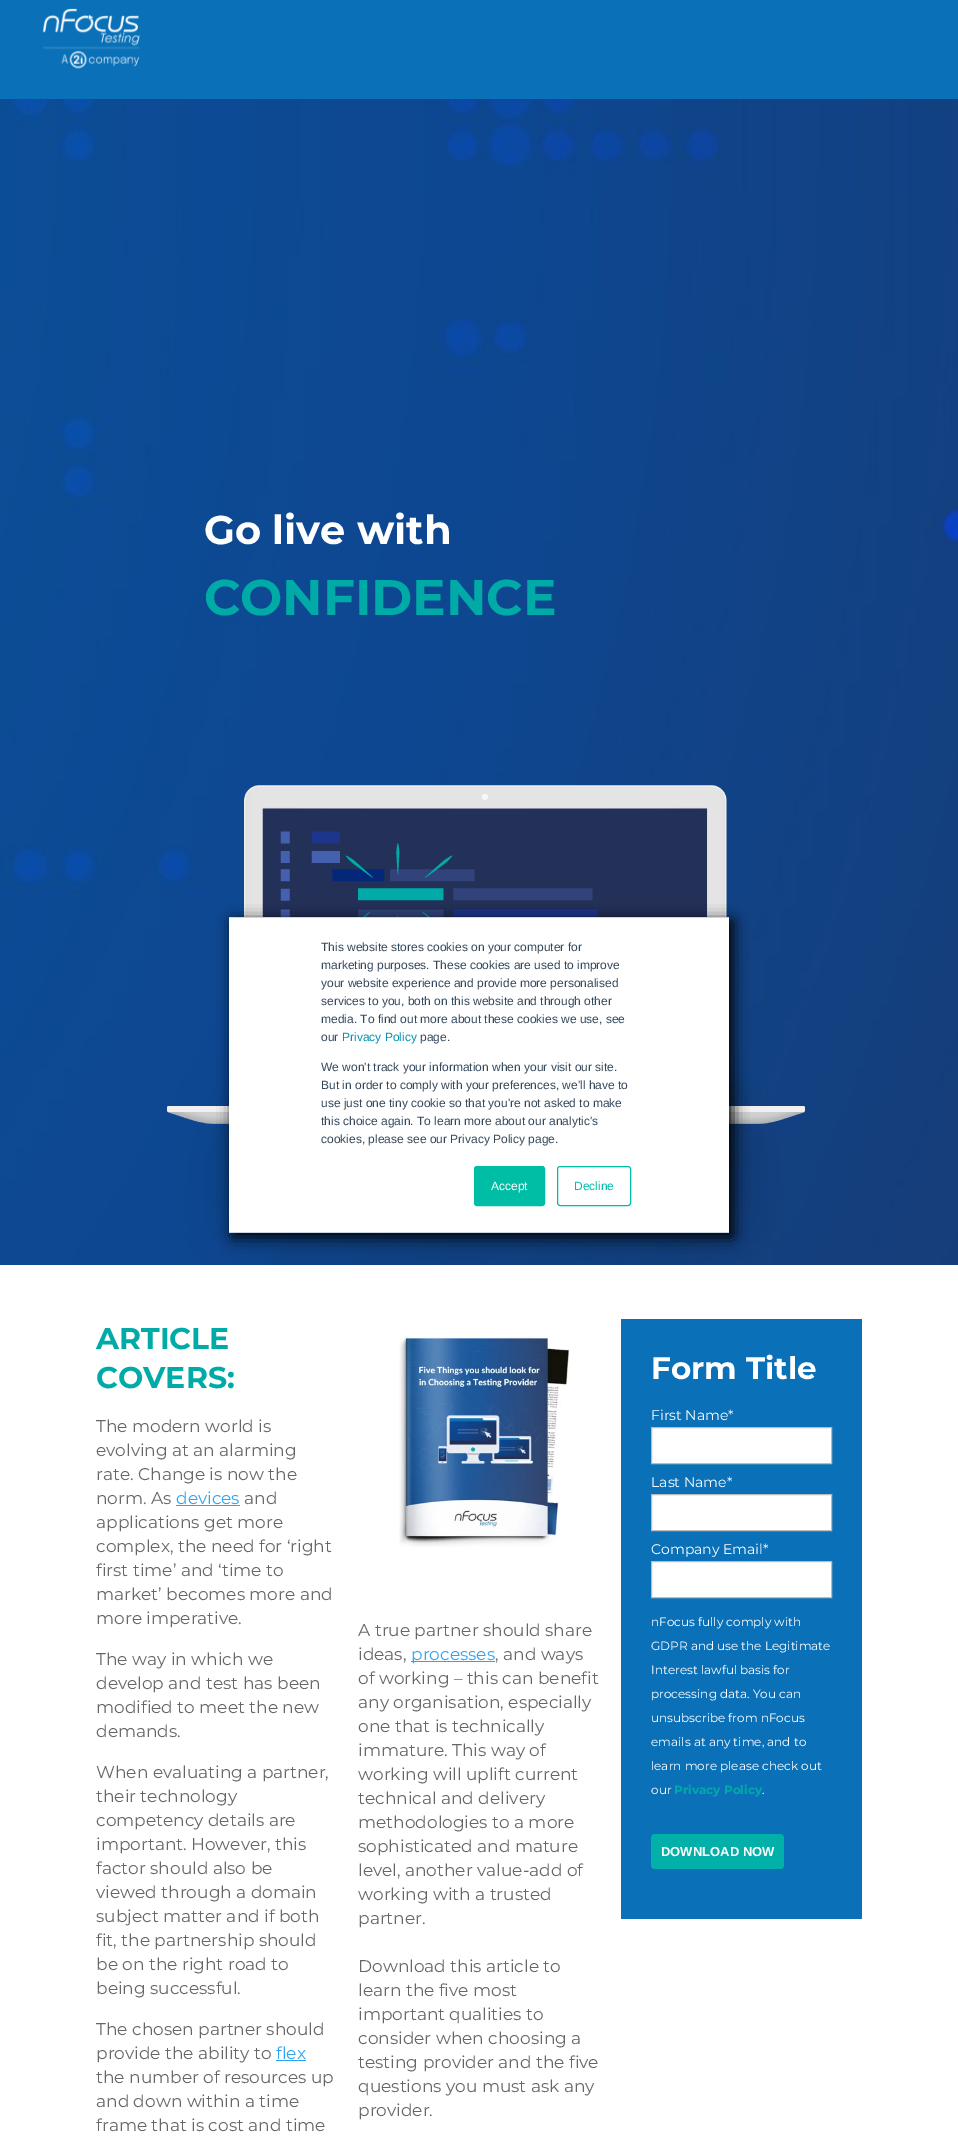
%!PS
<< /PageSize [958 2150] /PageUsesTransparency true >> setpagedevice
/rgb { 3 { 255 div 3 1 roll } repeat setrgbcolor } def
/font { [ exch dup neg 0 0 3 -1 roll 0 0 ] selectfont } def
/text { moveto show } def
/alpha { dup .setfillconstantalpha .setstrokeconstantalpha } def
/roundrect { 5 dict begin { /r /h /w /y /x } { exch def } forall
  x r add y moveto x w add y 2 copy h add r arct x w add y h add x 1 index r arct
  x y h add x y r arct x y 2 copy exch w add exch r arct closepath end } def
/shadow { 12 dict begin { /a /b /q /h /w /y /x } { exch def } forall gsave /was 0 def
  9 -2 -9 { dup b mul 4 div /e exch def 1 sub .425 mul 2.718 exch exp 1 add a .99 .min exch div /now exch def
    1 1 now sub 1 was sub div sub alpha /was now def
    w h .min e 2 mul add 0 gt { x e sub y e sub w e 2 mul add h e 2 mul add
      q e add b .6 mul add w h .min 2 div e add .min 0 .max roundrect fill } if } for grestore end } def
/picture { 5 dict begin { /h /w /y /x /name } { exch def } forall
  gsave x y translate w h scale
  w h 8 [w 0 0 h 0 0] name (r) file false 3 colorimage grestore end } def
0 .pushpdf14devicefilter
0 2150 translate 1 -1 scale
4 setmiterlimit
255 255 255 rgb
0 0 958 2150 rectfill
10 113 184 rgb
0 0 958 99 rectfill
(img_01.rgb) 42 8 98 61 picture
(img_02.rgb) 0 99 958 1166 picture
(img_03.rgb) 167 785 638 480 picture
46 163 242 rgb
176 1505 64 1 rectfill
276 2060 30 1 rectfill
(img_04.rgb) 399 1335 170 212 picture
411 1661 84 1 rectfill
10 113 184 rgb
621 1319 241 600 rectfill
255 255 255 rgb
651.5 1427.5 moveto 180 0 rlineto 0 36 rlineto -180 0 rlineto closepath gsave fill grestore
187 187 187 rgb
stroke
255 255 255 rgb
651.5 1494.5 moveto 180 0 rlineto 0 36 rlineto -180 0 rlineto closepath gsave fill grestore
187 187 187 rgb
stroke
255 255 255 rgb
651.5 1561.5 moveto 180 0 rlineto 0 36 rlineto -180 0 rlineto closepath gsave fill grestore
187 187 187 rgb
stroke
0 176 169 rgb
651 1834 133 35 4 roundrect fill
0 0 0 rgb
233 921 500 316 0 7.5 1 shadow
255 255 255 rgb
229 918 500 314 rectfill
203 214 226 rgb
229 917 500 1 rectfill
229 1232 500 1 rectfill
0 189 165 rgb
474.5 1166.5 70 39 2.5 roundrect gsave fill grestore
stroke
557.5 1166.5 73 39 2.5 roundrect stroke
/Montserrat-Bold 40 font
255 255 255 rgb
(Go live with) 204 544 text
/Montserrat-Bold 50 font
0 171 167 rgb
(CONFIDENCE) 204 615 text
/Montserrat-Bold 30 font
(ARTICLE) 96 1349 text
(COVERS:) 96 1388 text
/Montserrat-Regular 17 font
102 102 102 rgb
(The modern world is) 96 1432 text
(evolving at an alarming) 96 1456 text
(rate. Change is now the) 96 1480 text
(norm. As) 96 1504 text
46 163 242 rgb
(devices) 176 1504 text
102 102 102 rgb
(and) 244 1504 text
(applications get more) 96 1528 text
(complex, the need for ‘right) 96 1552 text
(first time’ and ‘time to) 96 1576 text
(market’ becomes more and) 96 1600 text
(more imperative.) 96 1624 text
(The way in which we) 96 1665 text
(develop and test has been) 96 1689 text
(modified to meet the new) 96 1713 text
(demands.) 96 1737 text
(When evaluating a partner,) 96 1778 text
(their technology) 96 1802 text
(competency details are) 96 1826 text
(important. However, this) 96 1850 text
(factor should also be) 96 1874 text
(viewed through a domain) 96 1898 text
(subject matter and if both) 96 1922 text
(fit, the partnership should) 96 1946 text
(be on the right road to) 96 1970 text
(being successful.) 96 1994 text
(The chosen partner should) 96 2035 text
(provide the ability to) 96 2059 text
46 163 242 rgb
(flex) 276 2059 text
102 102 102 rgb
(the number of resources up) 96 2083 text
(and down within a time) 96 2107 text
(frame that is cost and time) 96 2131 text
(A true partner should share) 358 1636 text
(ideas,) 358 1660 text
46 163 242 rgb
(processes) 411 1660 text
102 102 102 rgb
(, and ways) 495 1660 text
(of working – this can benefit) 358 1684 text
(any organisation, especially) 358 1708 text
(one that is technically) 358 1732 text
(immature. This way of) 358 1756 text
(working will uplift current) 358 1780 text
(technical and delivery) 358 1804 text
(methodologies to a more) 358 1828 text
(sophisticated and mature) 358 1852 text
(level, another value-add of) 358 1876 text
(working with a trusted) 358 1900 text
(partner.) 358 1924 text
(Download this article to) 358 1972 text
(learn the five most) 358 1996 text
(important qualities to) 358 2020 text
(consider when choosing a) 358 2044 text
(testing provider and the five) 358 2068 text
(questions you must ask any) 358 2092 text
(provider.) 358 2116 text
/Montserrat-Bold 31 font
255 255 255 rgb
(Form Title) 651 1379 text
/Montserrat-Regular 14 font
(First Name*) 651 1420 text
(Last Name*) 651 1487 text
(Company Email*) 651 1554 text
/Montserrat-Regular 12 font
(nFocus fully comply with) 651 1626 text
(GDPR and use the Legitimate) 651 1650 text
(Interest lawful basis for) 651 1674 text
(processing data. You can) 651 1698 text
(unsubscribe from nFocus) 651 1722 text
(emails at any time, and to) 651 1746 text
(learn more please check out) 651 1770 text
(our) 651 1794 text
/Montserrat-Bold 12 font
0 171 167 rgb
(Privacy Policy) 674 1794 text
/Montserrat-Regular 12 font
255 255 255 rgb
(.) 762 1794 text
/LiberationSans-Bold 13 font
(DOWNLOAD NOW) 661 1856 text
/LiberationSans-Regular 12 font
51 71 91 rgb
(This website stores cookies on your computer for) 321 951 text
(marketing purposes. These cookies are used to improve) 321 969 text
(your website experience and provide more personalised) 321 987 text
(services to you, both on this website and through other) 321 1005 text
(media. To find out more about these cookies we use, see) 321 1023 text
(our) 321 1041 text
0 145 174 rgb
(Privacy Policy) 342 1041 text
51 71 91 rgb
(page.) 420 1041 text
(We won't track your information when your visit our site.) 321 1071 text
(But in order to comply with your preferences, we'll have to) 321 1089 text
(use just one tiny cookie so that you're not asked to make) 321 1107 text
(this choice again. To learn more about our analytic's) 321 1125 text
(cookies, please see our Privacy Policy page.) 321 1143 text
255 255 255 rgb
(Accept) 491 1190 text
0 189 165 rgb
(Decline) 574 1190 text
.poppdf14devicefilter showpage
